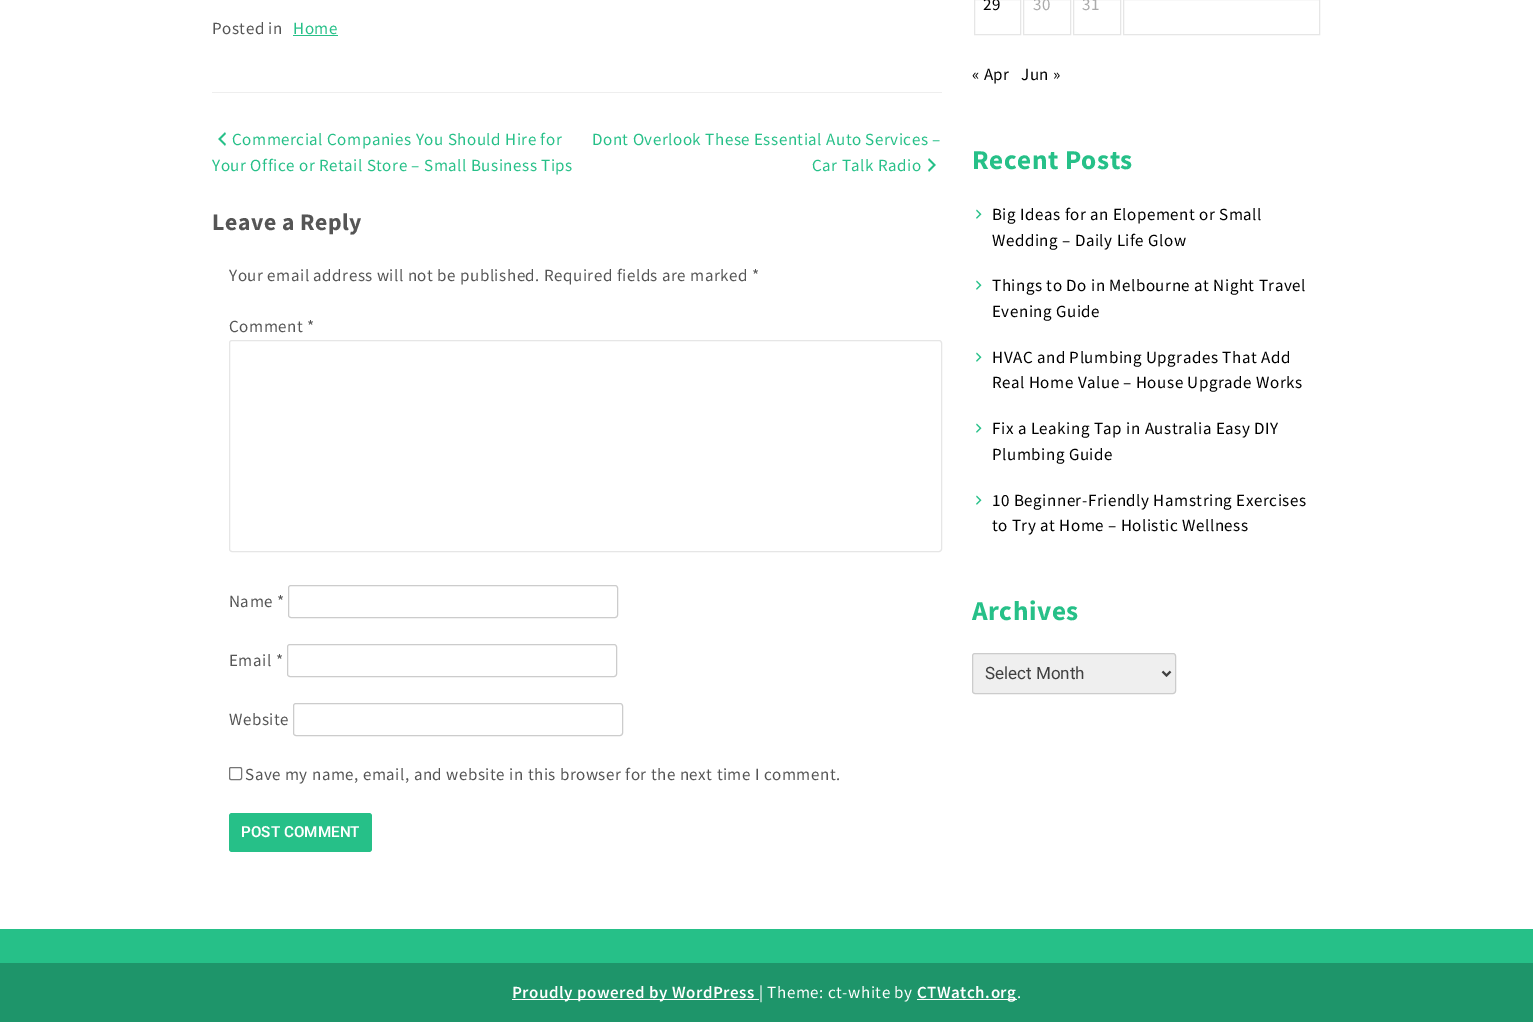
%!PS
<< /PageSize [1533 1022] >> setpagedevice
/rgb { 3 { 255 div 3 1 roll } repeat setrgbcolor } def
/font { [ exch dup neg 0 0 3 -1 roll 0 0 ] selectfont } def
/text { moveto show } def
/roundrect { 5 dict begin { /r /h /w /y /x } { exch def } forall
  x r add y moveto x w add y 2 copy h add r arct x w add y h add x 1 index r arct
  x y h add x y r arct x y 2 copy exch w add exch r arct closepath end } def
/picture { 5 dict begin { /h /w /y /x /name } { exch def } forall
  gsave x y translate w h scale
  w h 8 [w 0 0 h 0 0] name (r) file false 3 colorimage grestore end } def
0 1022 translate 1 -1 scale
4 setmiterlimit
255 255 255 rgb
0 0 1533 1022 rectfill
238 238 238 rgb
212 92 730 1 rectfill
38 192 136 rgb
293 35 45 1 rectfill
(img_01.rgb) 218 132 8 14 picture
(img_02.rgb) 928 158 8 14 picture
230 230 230 rgb
229.5 340.5 712 211 2.5 roundrect stroke
204 204 204 rgb
288.5 585.5 329 32 2.5 roundrect stroke
287.5 644.5 329 32 2.5 roundrect stroke
293.5 703.5 329 32 2.5 roundrect stroke
118 118 118 rgb
229.5 767.5 12 12 1.5 roundrect stroke
38 192 136 rgb
229 813 143 39 3 roundrect fill
230 230 230 rgb
974.5 -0.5 46 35 rectstroke
1023.5 -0.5 47 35 rectstroke
1073.5 -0.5 47 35 rectstroke
1123.5 -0.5 196 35 rectstroke
(img_03.rgb) 976 209 6 10 picture
(img_03.rgb) 976 280 6 10 picture
(img_03.rgb) 976 352 6 10 picture
(img_03.rgb) 976 423 6 10 picture
(img_03.rgb) 976 495 6 10 picture
239 239 239 rgb
972.5 653.5 203 40 2.5 roundrect gsave fill grestore
204 204 204 rgb
stroke
64 64 64 rgb
2 setlinewidth
1162.5 671.5 moveto 4 4 rlineto 4 -4 rlineto stroke
38 192 136 rgb
0 929 1533 34 rectfill
30 149 106 rgb
0 963 1533 59 rectfill
255 255 255 rgb
512 999 247 1 rectfill
917 999 100 1 rectfill
/SourceSansPro-Regular 17 font
85 85 85 rgb
212 34 moveto 0.5 0 (Posted in) ashow
38 192 136 rgb
293 34 moveto 0.5 0 (Home) ashow
232 145 moveto 0.5 0 (Commercial Companies You Should Hire for) ashow
212 171 moveto 0.5 0 (Your Office or Retail Store – Small Business Tips) ashow
592 145 moveto 0.5 0 (Dont Overlook These Essential Auto Services –) ashow
812 171 moveto 0.5 0 (Car Talk Radio) ashow
/SourceSansPro-Bold 23.75 font
85 85 85 rgb
212 230 moveto 0.5 0 (Leave a Reply) ashow
/SourceSansPro-Regular 17 font
229 281 moveto 0.5 0 (Your email address will not be published. Required fields are marked *) ashow
229 332 moveto 0.5 0 (Comment *) ashow
229 607 moveto 0.5 0 (Name *) ashow
229 666 moveto 0.5 0 (Email *) ashow
229 725 moveto 0.5 0 (Website) ashow
245 780 moveto 0.5 0 (Save my name, email, and website in this browser for the next time I comment.) ashow
/Roboto-SemiBold 15.25 font
255 255 255 rgb
(POST COMMENT) 241 837 text
/SourceSansPro-Regular 17 font
0 0 0 rgb
983 10 moveto 0.5 0 (29) ashow
170 170 170 rgb
1033 10 moveto 0.5 0 (30) ashow
1082 10 moveto 0.5 0 (31) ashow
0 0 0 rgb
972 80 moveto 0.5 0 (« Apr) ashow
1021 80 moveto 0.5 0 (Jun ») ashow
/SourceSansPro-Bold 27.25 font
38 192 136 rgb
972 169 moveto 0.5 0 (Recent Posts) ashow
/SourceSansPro-Regular 17 font
0 0 0 rgb
992 220 moveto 0.5 0 (Big Ideas for an Elopement or Small) ashow
992 246 moveto 0.5 0 (Wedding – Daily Life Glow) ashow
992 291 moveto 0.5 0 (Things to Do in Melbourne at Night Travel) ashow
992 317 moveto 0.5 0 (Evening Guide) ashow
992 363 moveto 0.5 0 (HVAC and Plumbing Upgrades That Add) ashow
992 388 moveto 0.5 0 (Real Home Value – House Upgrade Works) ashow
992 434 moveto 0.5 0 (Fix a Leaking Tap in Australia Easy DIY) ashow
992 460 moveto 0.5 0 (Plumbing Guide) ashow
992 506 moveto 0.5 0 (10 Beginner-Friendly Hamstring Exercises) ashow
992 531 moveto 0.5 0 (to Try at Home – Holistic Wellness) ashow
/SourceSansPro-Bold 27.25 font
38 192 136 rgb
972 620 moveto 0.5 0 (Archives) ashow
/Roboto-Regular 17 font
64 64 64 rgb
(Select Month) 985 679 text
/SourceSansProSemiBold-SemiBold 17 font
255 255 255 rgb
512 998 moveto 0.5 0 (Proudly powered by WordPress) ashow
/SourceSansPro-Regular 17 font
759 998 moveto 0.5 0 (| Theme: ct-white by) ashow
/SourceSansProSemiBold-SemiBold 17 font
917 998 moveto 0.5 0 (CTWatch.org) ashow
/SourceSansPro-Regular 17 font
1017 998 moveto 0.5 0 (.) ashow
showpage
